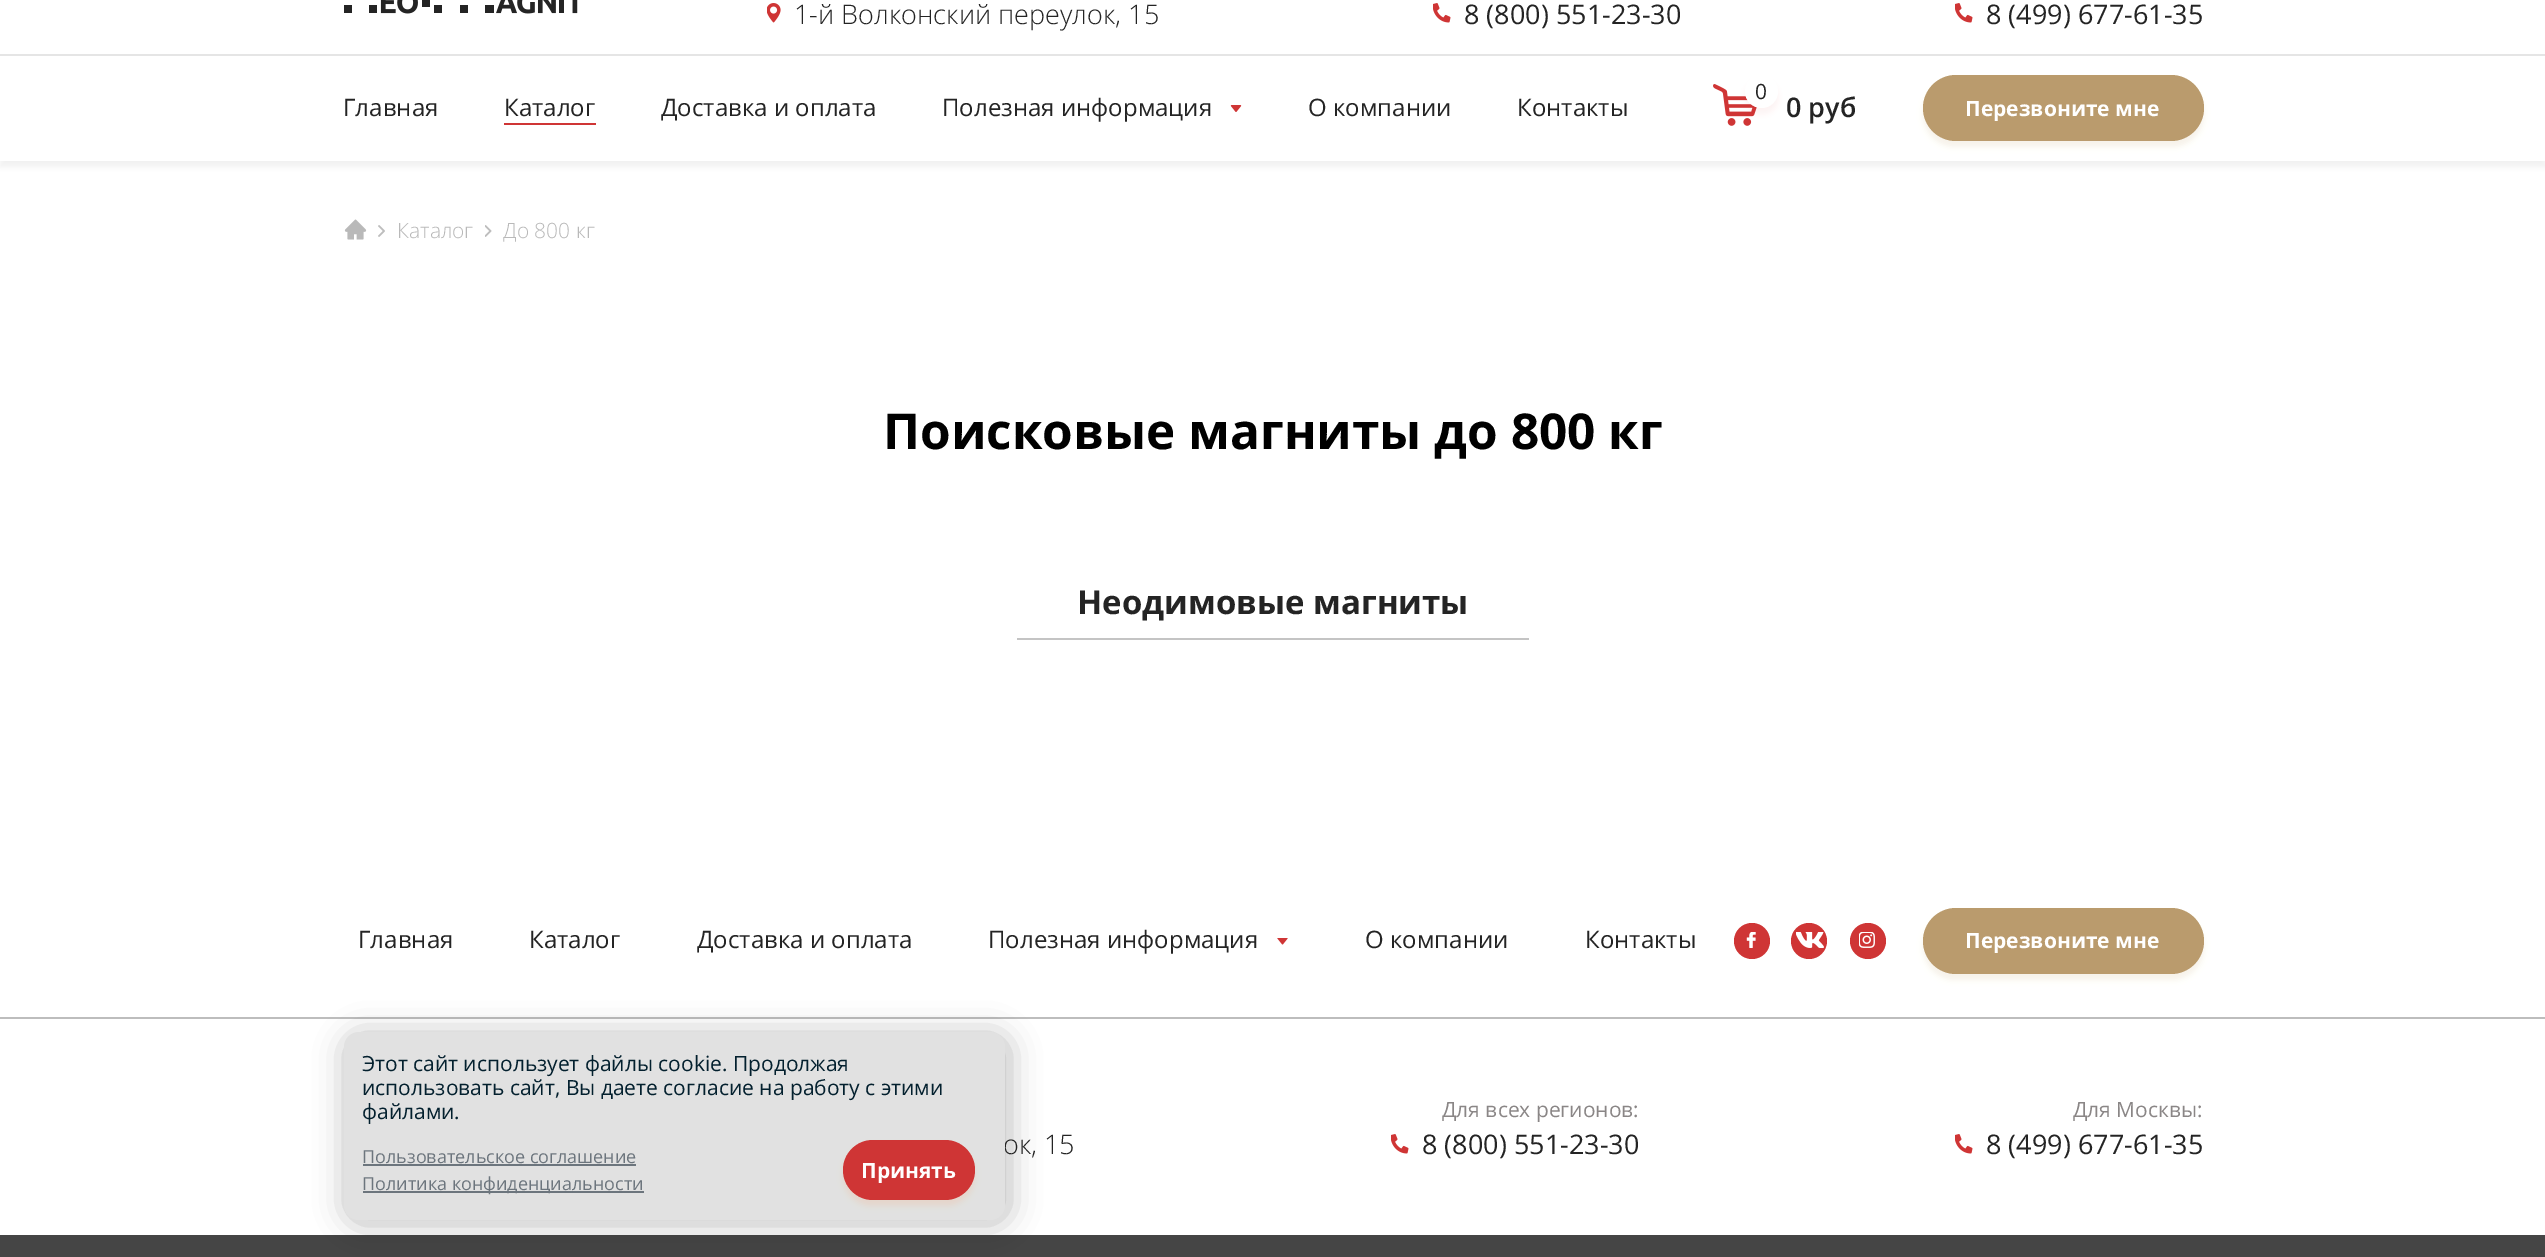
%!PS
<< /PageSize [2545 1257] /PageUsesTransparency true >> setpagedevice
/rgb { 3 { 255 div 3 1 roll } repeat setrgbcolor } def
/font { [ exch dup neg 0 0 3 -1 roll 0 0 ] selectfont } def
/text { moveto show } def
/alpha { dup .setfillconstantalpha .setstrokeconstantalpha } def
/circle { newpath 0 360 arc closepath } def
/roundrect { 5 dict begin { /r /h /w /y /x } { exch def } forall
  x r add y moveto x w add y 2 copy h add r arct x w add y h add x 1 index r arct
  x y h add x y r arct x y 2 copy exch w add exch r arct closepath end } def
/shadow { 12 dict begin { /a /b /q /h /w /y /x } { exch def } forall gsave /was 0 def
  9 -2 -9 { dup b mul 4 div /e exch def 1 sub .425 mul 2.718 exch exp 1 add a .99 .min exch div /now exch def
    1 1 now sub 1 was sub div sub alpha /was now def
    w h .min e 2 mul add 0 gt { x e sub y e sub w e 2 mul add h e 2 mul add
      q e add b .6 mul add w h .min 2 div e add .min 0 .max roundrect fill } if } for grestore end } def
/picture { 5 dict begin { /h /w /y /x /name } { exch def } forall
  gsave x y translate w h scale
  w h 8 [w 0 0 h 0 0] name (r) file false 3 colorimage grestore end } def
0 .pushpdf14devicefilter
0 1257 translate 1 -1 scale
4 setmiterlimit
255 255 255 rgb
0 0 2545 1257 rectfill
gsave
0 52 moveto 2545 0 rlineto 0 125 rlineto -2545 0 rlineto closepath 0 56 moveto 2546 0 rlineto 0 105 rlineto -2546 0 rlineto closepath eoclip newpath
0 0 0 rgb
0 62 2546 105 0 3 0.05 shadow
grestore
229 229 229 rgb
0 54 2545 2 rectfill
(img_01.rgb) 344 0 234 14 picture
(img_02.rgb) 767 3 14 20 picture
(img_03.rgb) 1433 3 18 20 picture
(img_03.rgb) 1955 3 18 20 picture
207 53 53 rgb
504 123 92 2 rectfill
(img_04.rgb) 1230 105 12 7 picture
(img_05.rgb) 1713 84 44 42 picture
1745 81 33 33 16.5 3 0.05 shadow
255 255 255 rgb
1761.5 91.5 16.5 circle fill
186 155 109 rgb
1923 81 281 66 33 3 0.14 shadow
1923 75 281 66 33 roundrect fill
(img_06.rgb) 344 219 23 21 picture
(img_07.rgb) 378 225 7 12 picture
(img_08.rgb) 485 225 7 12 picture
196 196 196 rgb
1017 638 512 2 rectfill
189 189 189 rgb
0 1017 2545 2 rectfill
(img_09.rgb) 1277 938 11 7 picture
207 53 53 rgb
1752 941 18 circle fill
(img_10.rgb) 1746 932 10 16 picture
1809 941 18 circle fill
(img_11.rgb) 1796 932 28 16 picture
1868 941 18 circle fill
(img_12.rgb) 1859 932 16 16 picture
186 155 109 rgb
1923 914 281 66 33 3 0.14 shadow
1923 908 281 66 33 roundrect fill
(img_03.rgb) 1391 1134 18 20 picture
(img_03.rgb) 1955 1134 18 20 picture
69 69 69 rgb
0 1235 2545 22 rectfill
0 0 0 rgb
345 1034 665 190 17 15 0.25 shadow
/OpenSans-Light 27 font
36 36 36 rgb
(1-й Волконский переулок, 15) 794 24 text
/OpenSans-Regular 27 font
(8 \(800\) 551-23-30) 1464 24 text
(8 \(499\) 677-61-35) 1986 24 text
/OpenSans-Regular 24 font
(Главная) 343 116 text
(Каталог) 504 116 text
(Доставка и оплата) 661 116 text
(Полезная информация) 942 116 text
(О компании) 1308 116 text
(Контакты) 1517 116 text
/OpenSans-Regular 21 font
(0) 1755 99 text
/OpenSans-SemiBold 27 font
(0 руб) 1786 117 text
/OpenSans-Bold 21 font
255 255 255 rgb
(Перезвоните мне) 1965 116 text
/OpenSans-Light 21 font
185 185 185 rgb
(Каталог) 397 238 text
(До 800 кг) 503 238 text
/OpenSans-Bold 49.5 font
0 0 0 rgb
(Поисковые магниты до 800 кг) 883 449 text
/OpenSans-Bold 33 font
36 36 36 rgb
(Неодимовые магниты) 1077 614 text
/OpenSans-Regular 24 font
(Главная) 358 948 text
(Каталог) 529 948 text
(Доставка и оплата) 697 948 text
(Полезная информация) 988 948 text
(О компании) 1365 948 text
(Контакты) 1585 948 text
/OpenSans-Bold 21 font
255 255 255 rgb
(Перезвоните мне) 1965 948 text
/OpenSans-Light 27 font
36 36 36 rgb
(ок, 15) 1003 1154 text
/OpenSans-Regular 21 font
138 134 134 rgb
(Для всех регионов:) 1442 1117 text
/OpenSans-Regular 27 font
36 36 36 rgb
(8 \(800\) 551-23-30) 1422 1154 text
/OpenSans-Regular 21 font
138 134 134 rgb
(Для Москвы:) 2073 1117 text
/OpenSans-Regular 27 font
36 36 36 rgb
(8 \(499\) 677-61-35) 1986 1154 text
225 225 225 rgb
344 1032 661 188 15 roundrect fill
/OpenSans-Regular 21 font
3 32 46 rgb
(Этот сайт использует файлы cookie. Продолжая) 362 1071 text
(использовать сайт, Вы даете согласие на работу с этими) 362 1095 text
(файлами.) 362 1119 text
/OpenSans-Regular 18 font
108 117 125 rgb
(Пользовательское соглашение) 362 1163 text
363 1164 273 2 rectfill
363 1191 281 2 rectfill
(Политика конфиденциальности) 362 1190 text
255 124 63 rgb
843 1146 132 60 30 3 0.12 shadow
207 53 53 rgb
843 1140 132 60 30 roundrect fill
/OpenSans-Bold 21 font
255 255 255 rgb
(Принять) 861 1178 text
.poppdf14devicefilter showpage
